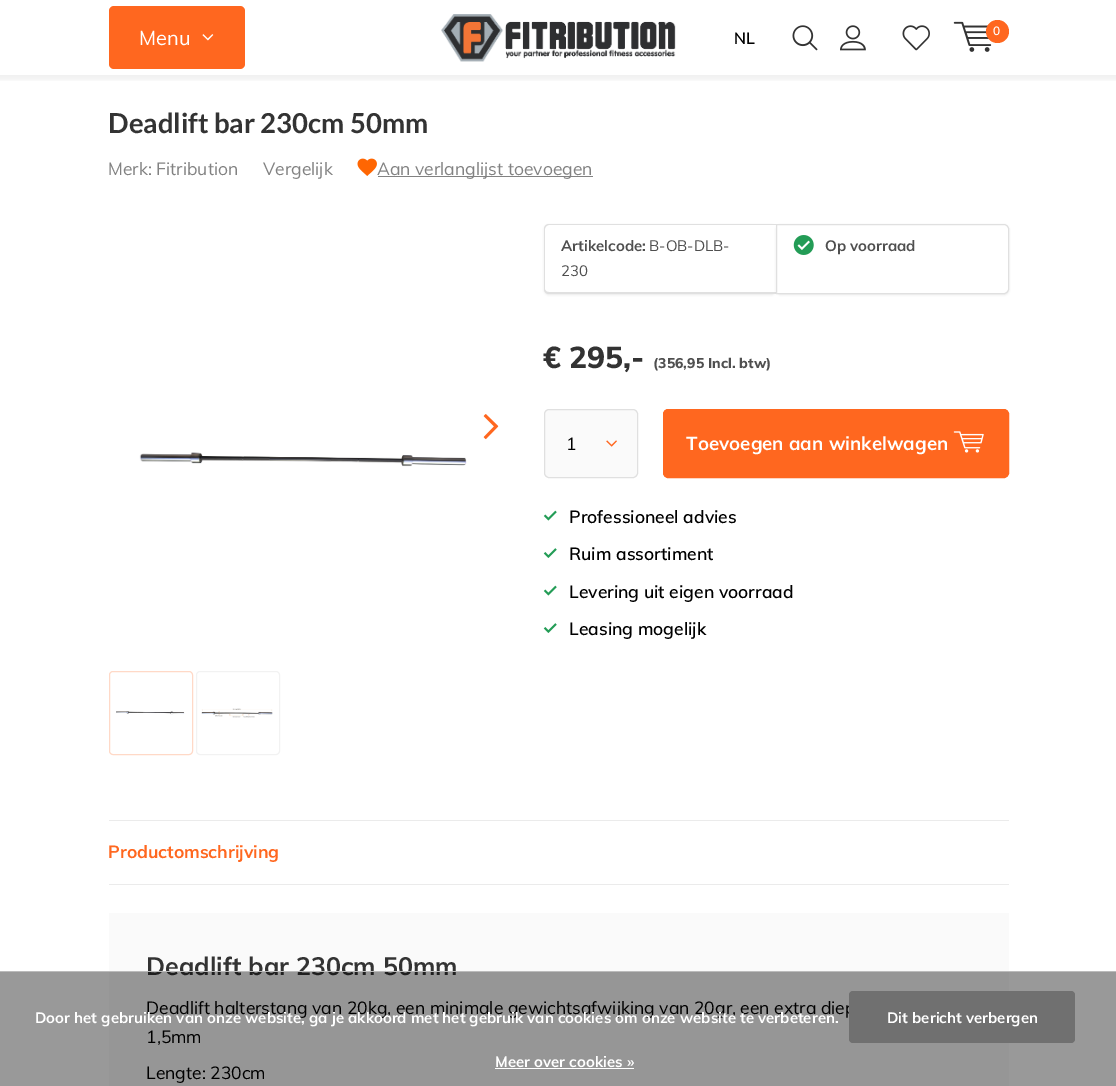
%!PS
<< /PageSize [1116 1086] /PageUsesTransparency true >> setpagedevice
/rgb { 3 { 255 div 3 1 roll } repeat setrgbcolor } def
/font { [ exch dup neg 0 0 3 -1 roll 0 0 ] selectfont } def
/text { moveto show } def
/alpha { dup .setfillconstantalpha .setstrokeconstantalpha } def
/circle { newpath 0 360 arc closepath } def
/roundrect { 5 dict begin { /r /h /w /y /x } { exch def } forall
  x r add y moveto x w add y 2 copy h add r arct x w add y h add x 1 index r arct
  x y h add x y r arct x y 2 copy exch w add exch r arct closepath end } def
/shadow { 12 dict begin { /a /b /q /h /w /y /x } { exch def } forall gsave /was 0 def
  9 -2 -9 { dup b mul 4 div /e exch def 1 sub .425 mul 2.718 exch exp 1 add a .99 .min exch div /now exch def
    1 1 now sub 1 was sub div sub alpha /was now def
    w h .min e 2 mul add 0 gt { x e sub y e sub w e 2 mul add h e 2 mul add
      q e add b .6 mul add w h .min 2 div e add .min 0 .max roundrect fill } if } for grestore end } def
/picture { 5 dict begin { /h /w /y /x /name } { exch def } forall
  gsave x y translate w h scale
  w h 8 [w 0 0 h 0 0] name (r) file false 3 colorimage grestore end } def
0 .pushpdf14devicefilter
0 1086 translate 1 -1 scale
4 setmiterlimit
255 255 255 rgb
0 0 1116 1086 rectfill
gsave
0 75 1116 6 rectclip
0 0 0 rgb
-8 5 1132 75 0 2.5 0.05 shadow
grestore
(img_01.rgb) 441 14 235 48 picture
255 103 31 rgb
109 6 136 63 5 roundrect fill
(img_02.rgb) 202 34 12 7 picture
(img_03.rgb) 792 25 26 26 picture
(img_04.rgb) 840 25 26 26 picture
(img_05.rgb) 902 25 28 26 picture
(img_06.rgb) 953 21 39 31 picture
997.5 31.5 11.5 circle fill
(img_07.rgb) 357 158 20 18 picture
130 130 130 rgb
378 176 215 1 rectfill
(img_08.rgb) 483 414 16 26 picture
(img_09.rgb) 139 452 328 15 picture
255 217 199 rgb
109.5 671.5 83 83 3.5 roundrect stroke
(img_10.rgb) 116 711 69 4 picture
242 242 242 rgb
196.5 671.5 83 83 3.5 roundrect stroke
(img_11.rgb) 201 708 72 10 picture
gsave
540 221 moveto 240 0 rlineto 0 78 rlineto -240 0 rlineto closepath 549 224 moveto 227 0 rlineto 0 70 rlineto -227 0 rlineto -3 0 -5 -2 -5 -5 rcurveto 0 -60 rlineto 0 -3 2 -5 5 -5 rcurveto closepath eoclip newpath
0 0 0 rgb
544 225 232 70 5 1 0.08 shadow
grestore
224 224 224 rgb
549 224 moveto 227 0 rlineto 0 70 rlineto -227 0 rlineto -3 0 -5 -2 -5 -5 rcurveto 0 -60 rlineto 0 -3 2 -5 5 -5 rcurveto closepath 549 225 moveto 227 0 rlineto 0 67 rlineto -227 0 rlineto -2 0 -4 -1 -4 -3 rcurveto 0 -60 rlineto 0 -2 2 -4 4 -4 rcurveto closepath eofill
0 0 0 rgb
776 225 233 70 5 1 0.08 shadow
255 255 255 rgb
776.5 224.5 moveto 227.5 0 rlineto 2.5 0 4.5 2 4.5 4.5 rcurveto 0 60 rlineto 0 2.5 -2 4.5 -4.5 4.5 rcurveto -227.5 0 rlineto closepath gsave fill grestore
224 224 224 rgb
stroke
(img_12.rgb) 793 235 21 20 picture
250 250 250 rgb
544 409 94 69 5 roundrect fill
(img_13.rgb) 606 440 11 7 picture
224 224 224 rgb
544.5 409.5 93 68 4.5 roundrect stroke
255 103 31 rgb
663.5 409.5 345 68 4.5 roundrect gsave fill grestore
stroke
(img_14.rgb) 953 431 31 22 picture
(img_15.rgb) 543 510 14 11 picture
(img_16.rgb) 543 548 14 10 picture
(img_15.rgb) 543 585 14 11 picture
(img_16.rgb) 543 623 14 10 picture
235 235 235 rgb
109 820 900 1 rectfill
109 884 900 1 rectfill
250 250 250 rgb
109 913 900 173 rectfill
/Muli-Regular 20 font
255 255 255 rgb
(Menu) 139 45 text
/Muli-SemiBold 12 font
(0) 993 35 text
/Muli-SemiBold 16 font
0 0 0 rgb
(NL) 734 44 text
/Lato-Bold 27.5 font
51 51 51 rgb
(Deadlift bar 230cm 50mm) 108 133 text
/Muli-Regular 17.5 font
130 130 130 rgb
(Merk: Fitribution) 108 175 text
(Vergelijk) 263 175 text
(Aan verlanglijst toevoegen) 377 175 text
/Muli-Bold 15 font
79 79 79 rgb
(Artikelcode:) 561 251 text
/Muli-Regular 15 font
(B-OB-DLB-) 649 251 text
(230) 561 276 text
/Muli-Bold 15 font
(Op voorraad) 825 251 text
/Muli-ExtraBold 30 font
51 51 51 rgb
(€ 295,-) 543 368 text
/Muli-ExtraBold 14 font
79 79 79 rgb
(\(356,95 Incl. btw\)) 653 368 text
/Muli-Regular 17.5 font
0 0 0 rgb
(1) 566 450 text
/Muli-Bold 18.75 font
255 255 255 rgb
(Toevoegen aan winkelwagen) 686 450 text
/Muli-SemiBold 17.5 font
0 0 0 rgb
(Professioneel advies) 569 523 text
(Ruim assortiment) 569 560 text
(Levering uit eigen voorraad) 569 598 text
(Leasing mogelijk) 569 635 text
/Muli-Bold 17.5 font
255 103 31 rgb
(Productomschrijving) 108 858 text
/Muli-Bold 25 font
51 51 51 rgb
(Deadlift bar 230cm 50mm) 146 975 text
/Muli-Regular 17.5 font
0 0 0 rgb
(Deadlift halterstang van 20kg, een minimale gewichtsafwijking van 20gr, een extra diep) 146 1014 text
(1,5mm) 146 1043 text
(Lengte: 230cm) 146 1079 text
0.4 alpha
0 972 1116 114 rectfill
1 alpha
187 187 187 rgb
0 971 1116 1 rectfill
/Muli-Bold 15 font
255 255 255 rgb
(Door het gebruiken van onze website, ga je akkoord met het gebruik van cookies om onze website te verbeteren.) 35 1023 text
112 112 112 rgb
849 991 226 52 4 roundrect fill
255 255 255 rgb
(Dit bericht verbergen) 887 1023 text
(Meer over cookies ») 495 1067 text
495 1068 139 1 rectfill
.poppdf14devicefilter showpage
